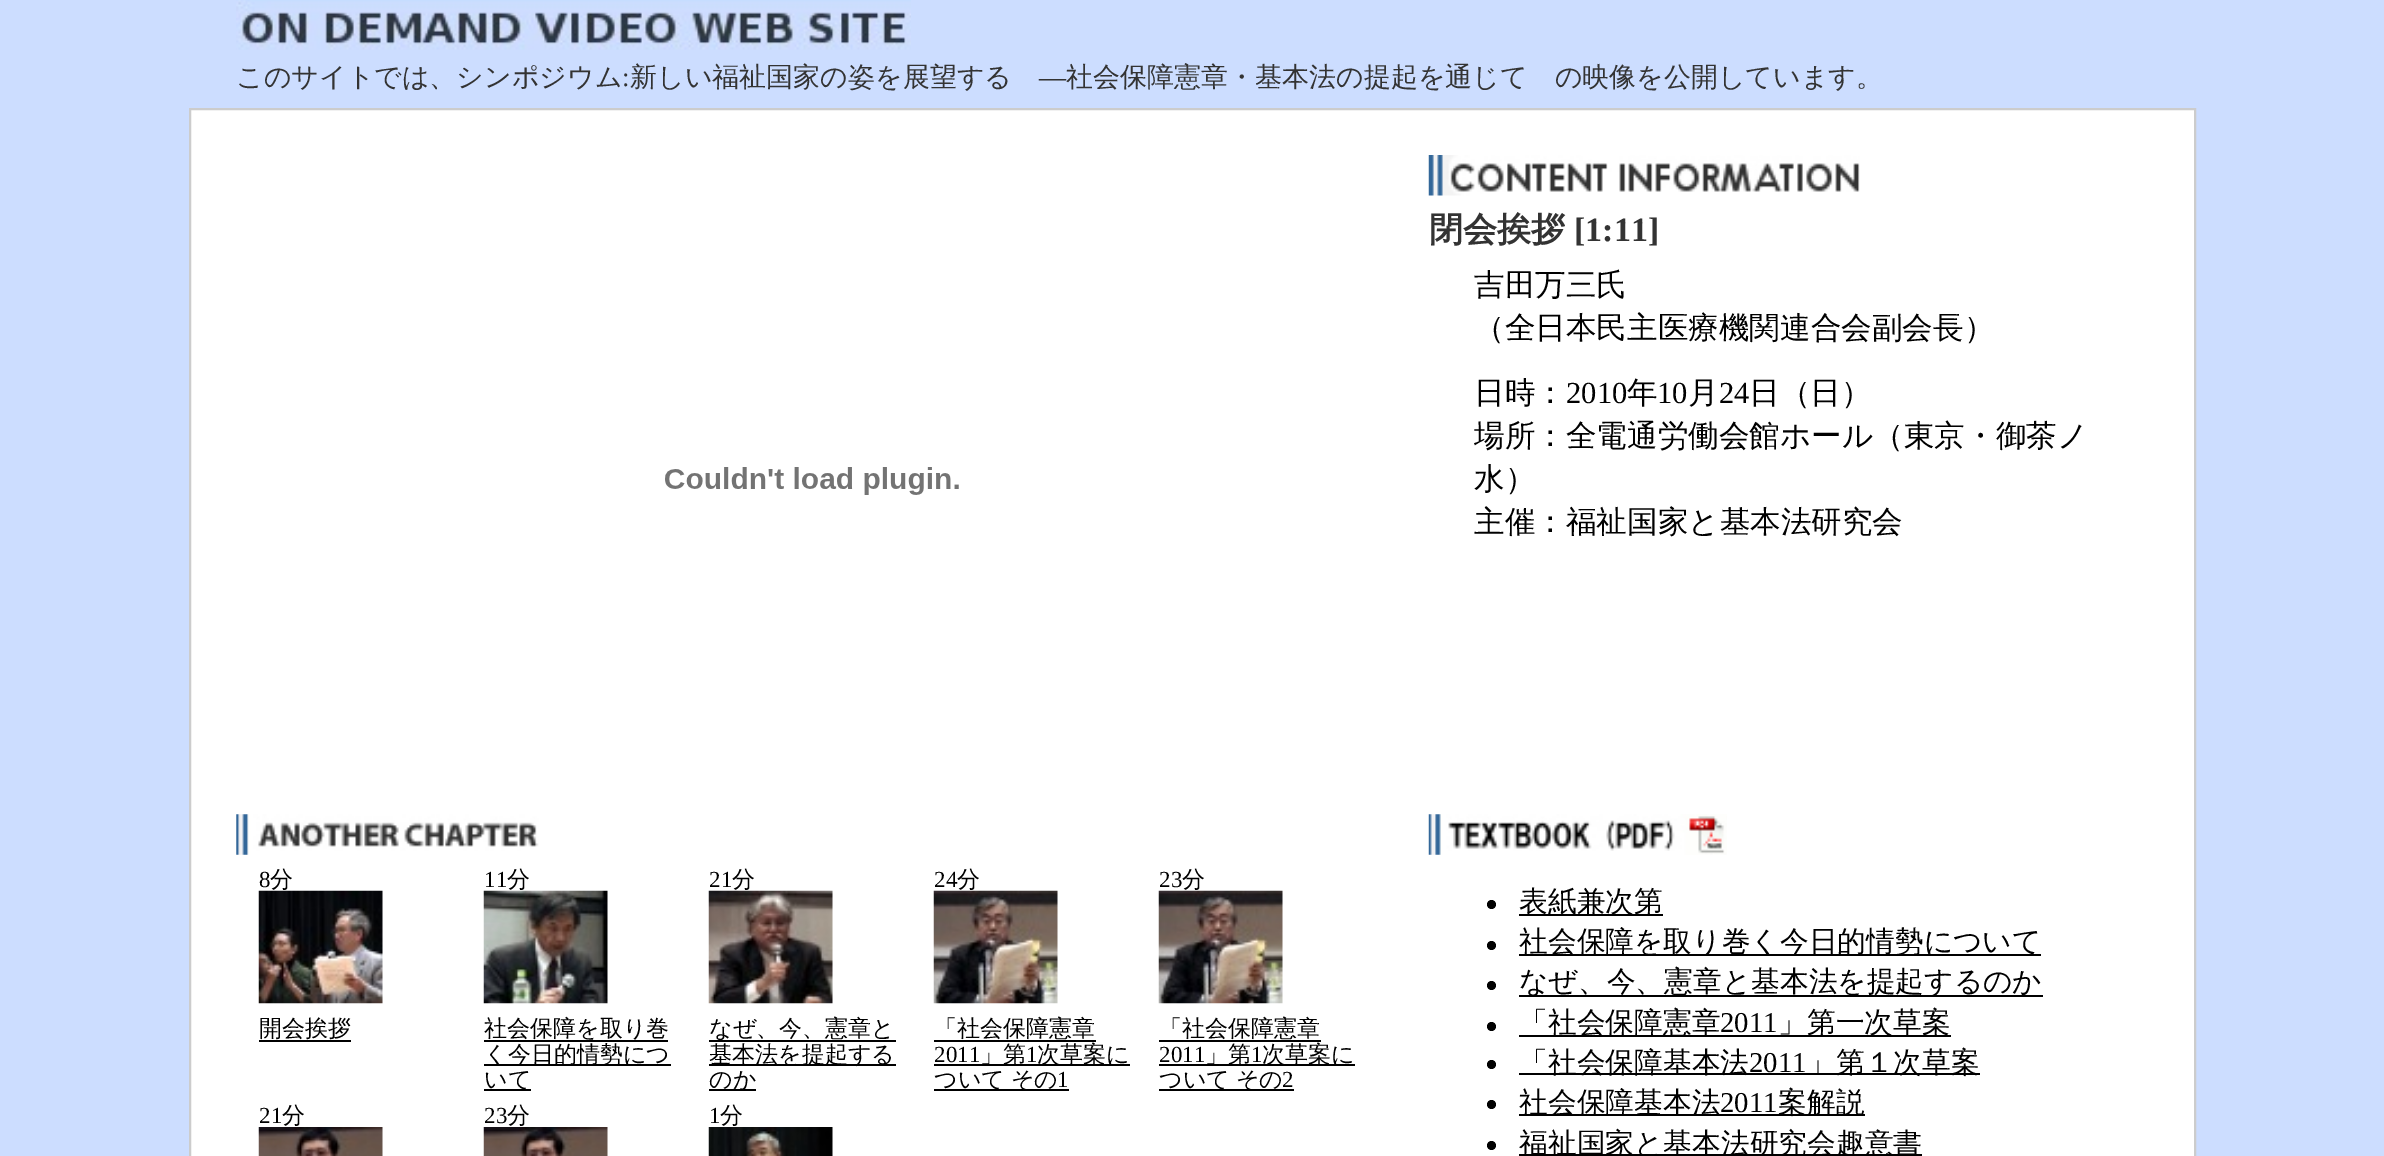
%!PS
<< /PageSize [2384 1156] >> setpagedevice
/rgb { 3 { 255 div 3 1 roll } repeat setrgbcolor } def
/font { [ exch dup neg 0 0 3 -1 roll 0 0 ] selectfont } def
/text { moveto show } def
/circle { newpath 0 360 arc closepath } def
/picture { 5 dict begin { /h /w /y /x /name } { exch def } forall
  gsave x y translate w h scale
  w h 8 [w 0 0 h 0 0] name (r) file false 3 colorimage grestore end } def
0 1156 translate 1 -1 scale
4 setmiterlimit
204 221 255 rgb
0 0 2384 1156 rectfill
(img_01.rgb) 236 0 675 50 picture
255 255 255 rgb
190 109 moveto 2005 0 rlineto 0 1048 rlineto -2005 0 rlineto closepath gsave fill grestore
204 204 204 rgb
2 setlinewidth
stroke
(img_02.rgb) 665 467 294 28 picture
(img_03.rgb) 1428 155 432 41 picture
(img_04.rgb) 236 814 303 41 picture
(img_05.rgb) 258 890 125 114 picture
0 0 0 rgb
259 1040 92 2 rectfill
(img_06.rgb) 483 890 125 114 picture
484 1040 184 2 rectfill
484 1064 187 2 rectfill
484 1089 47 2 rectfill
(img_07.rgb) 708 890 125 114 picture
709 1040 187 2 rectfill
709 1064 187 2 rectfill
709 1089 47 2 rectfill
(img_08.rgb) 933 890 125 114 picture
934 1040 162 2 rectfill
934 1064 196 2 rectfill
934 1089 135 2 rectfill
(img_09.rgb) 1158 890 125 114 picture
1159 1040 162 2 rectfill
1159 1064 196 2 rectfill
1159 1089 135 2 rectfill
(img_10.rgb) 258 1127 125 29 picture
(img_11.rgb) 483 1127 125 29 picture
(img_12.rgb) 708 1127 125 29 picture
(img_13.rgb) 1428 814 299 41 picture
1491.5 904.5 4.5 circle fill
1519 914 144 2 rectfill
1491.5 945.5 4.5 circle fill
1519 954 522 2 rectfill
1491.5 985.5 4.5 circle fill
1519 995 524 2 rectfill
1491.5 1026.5 4.5 circle fill
1519 1035 432 2 rectfill
1491.5 1064.5 4.5 circle fill
1519 1073 461 2 rectfill
1491.5 1104.5 4.5 circle fill
1519 1114 346 2 rectfill
1491.5 1145.5 4.5 circle fill
1519 1154 403 2 rectfill
/WenQuanYiZenHei-Medium 27 font
51 51 51 rgb
(このサイトでは、シンポジウム) 236 86 text
/LiberationSerif-Regular 27 font
(:) 622 86 text
/WenQuanYiZenHei-Medium 27 font
(新しい福祉国家の姿を展望する) 630 86 text
/LiberationSerif-Regular 27 font
(―) 1039 86 text
/WenQuanYiZenHei-Medium 27 font
(社会保障憲章・基本法の提起を通じて　の映像を公開しています。) 1066 86 text
/WenQuanYiZenHei-Bold 34 font
(閉会挨拶) 1429 241 text
/LiberationSerif-Bold 34 font
([1:11]) 1574 241 text
/WenQuanYiZenHei-Medium 30.6 font
0 0 0 rgb
(吉田万三氏) 1474 295 text
(（全日本民主医療機関連合会副会長）) 1474 338 text
(日時：) 1474 403 text
/LiberationSerif-Regular 30.6 font
(2010) 1566 403 text
/WenQuanYiZenHei-Medium 30.6 font
(年) 1627 403 text
/LiberationSerif-Regular 30.6 font
(10) 1657 403 text
/WenQuanYiZenHei-Medium 30.6 font
(月) 1688 403 text
/LiberationSerif-Regular 30.6 font
(24) 1719 403 text
/WenQuanYiZenHei-Medium 30.6 font
(日（日）) 1749 403 text
(場所：全電通労働会館ホール（東京・御茶ノ) 1474 446 text
(水）) 1474 489 text
(主催：福祉国家と基本法研究会) 1474 532 text
/LiberationSerif-Regular 23 font
(8) 259 887 text
/WenQuanYiZenHei-Medium 23 font
(分) 270 887 text
(開会挨拶) 259 1036 text
/LiberationSerif-Regular 23 font
(11) 484 887 text
/WenQuanYiZenHei-Medium 23 font
(分) 507 887 text
(社会保障を取り巻) 484 1036 text
(く今日的情勢につ) 484 1062 text
(いて) 484 1087 text
/LiberationSerif-Regular 23 font
(21) 709 887 text
/WenQuanYiZenHei-Medium 23 font
(分) 732 887 text
(なぜ、今、憲章と) 709 1036 text
(基本法を提起する) 709 1062 text
(のか) 709 1087 text
/LiberationSerif-Regular 23 font
(24) 934 887 text
/WenQuanYiZenHei-Medium 23 font
(分) 957 887 text
(「社会保障憲章) 934 1036 text
/LiberationSerif-Regular 23 font
(2011) 934 1062 text
/WenQuanYiZenHei-Medium 23 font
(」第) 980 1062 text
/LiberationSerif-Regular 23 font
(1) 1026 1062 text
/WenQuanYiZenHei-Medium 23 font
(次草案に) 1037 1062 text
934 1087 moveto -1 0 32 (ついて その) widthshow
/LiberationSerif-Regular 23 font
(1) 1057 1087 text
(23) 1159 887 text
/WenQuanYiZenHei-Medium 23 font
(分) 1182 887 text
(「社会保障憲章) 1159 1036 text
/LiberationSerif-Regular 23 font
(2011) 1159 1062 text
/WenQuanYiZenHei-Medium 23 font
(」第) 1205 1062 text
/LiberationSerif-Regular 23 font
(1) 1251 1062 text
/WenQuanYiZenHei-Medium 23 font
(次草案に) 1262 1062 text
1159 1087 moveto -1 0 32 (ついて その) widthshow
/LiberationSerif-Regular 23 font
(2) 1282 1087 text
(21) 259 1123 text
/WenQuanYiZenHei-Medium 23 font
(分) 282 1123 text
/LiberationSerif-Regular 23 font
(23) 484 1123 text
/WenQuanYiZenHei-Medium 23 font
(分) 507 1123 text
/LiberationSerif-Regular 23 font
(1) 709 1123 text
/WenQuanYiZenHei-Medium 23 font
(分) 720 1123 text
/WenQuanYiZenHei-Medium 28.75 font
(表紙兼次第) 1519 911 text
(社会保障を取り巻く今日的情勢について) 1519 951 text
(なぜ、今、憲章と基本法を提起するのか) 1519 991 text
(「社会保障憲章) 1519 1032 text
/LiberationSerif-Regular 28.75 font
(2011) 1720 1032 text
/WenQuanYiZenHei-Medium 28.75 font
(」第一次草案) 1778 1032 text
(「社会保障基本法) 1519 1072 text
/LiberationSerif-Regular 28.75 font
(2011) 1749 1072 text
/WenQuanYiZenHei-Medium 28.75 font
(」第１次草案) 1807 1072 text
(社会保障基本法) 1519 1112 text
/LiberationSerif-Regular 28.75 font
(2011) 1720 1112 text
/WenQuanYiZenHei-Medium 28.75 font
(案解説) 1778 1112 text
(福祉国家と基本法研究会趣意書) 1519 1153 text
showpage
